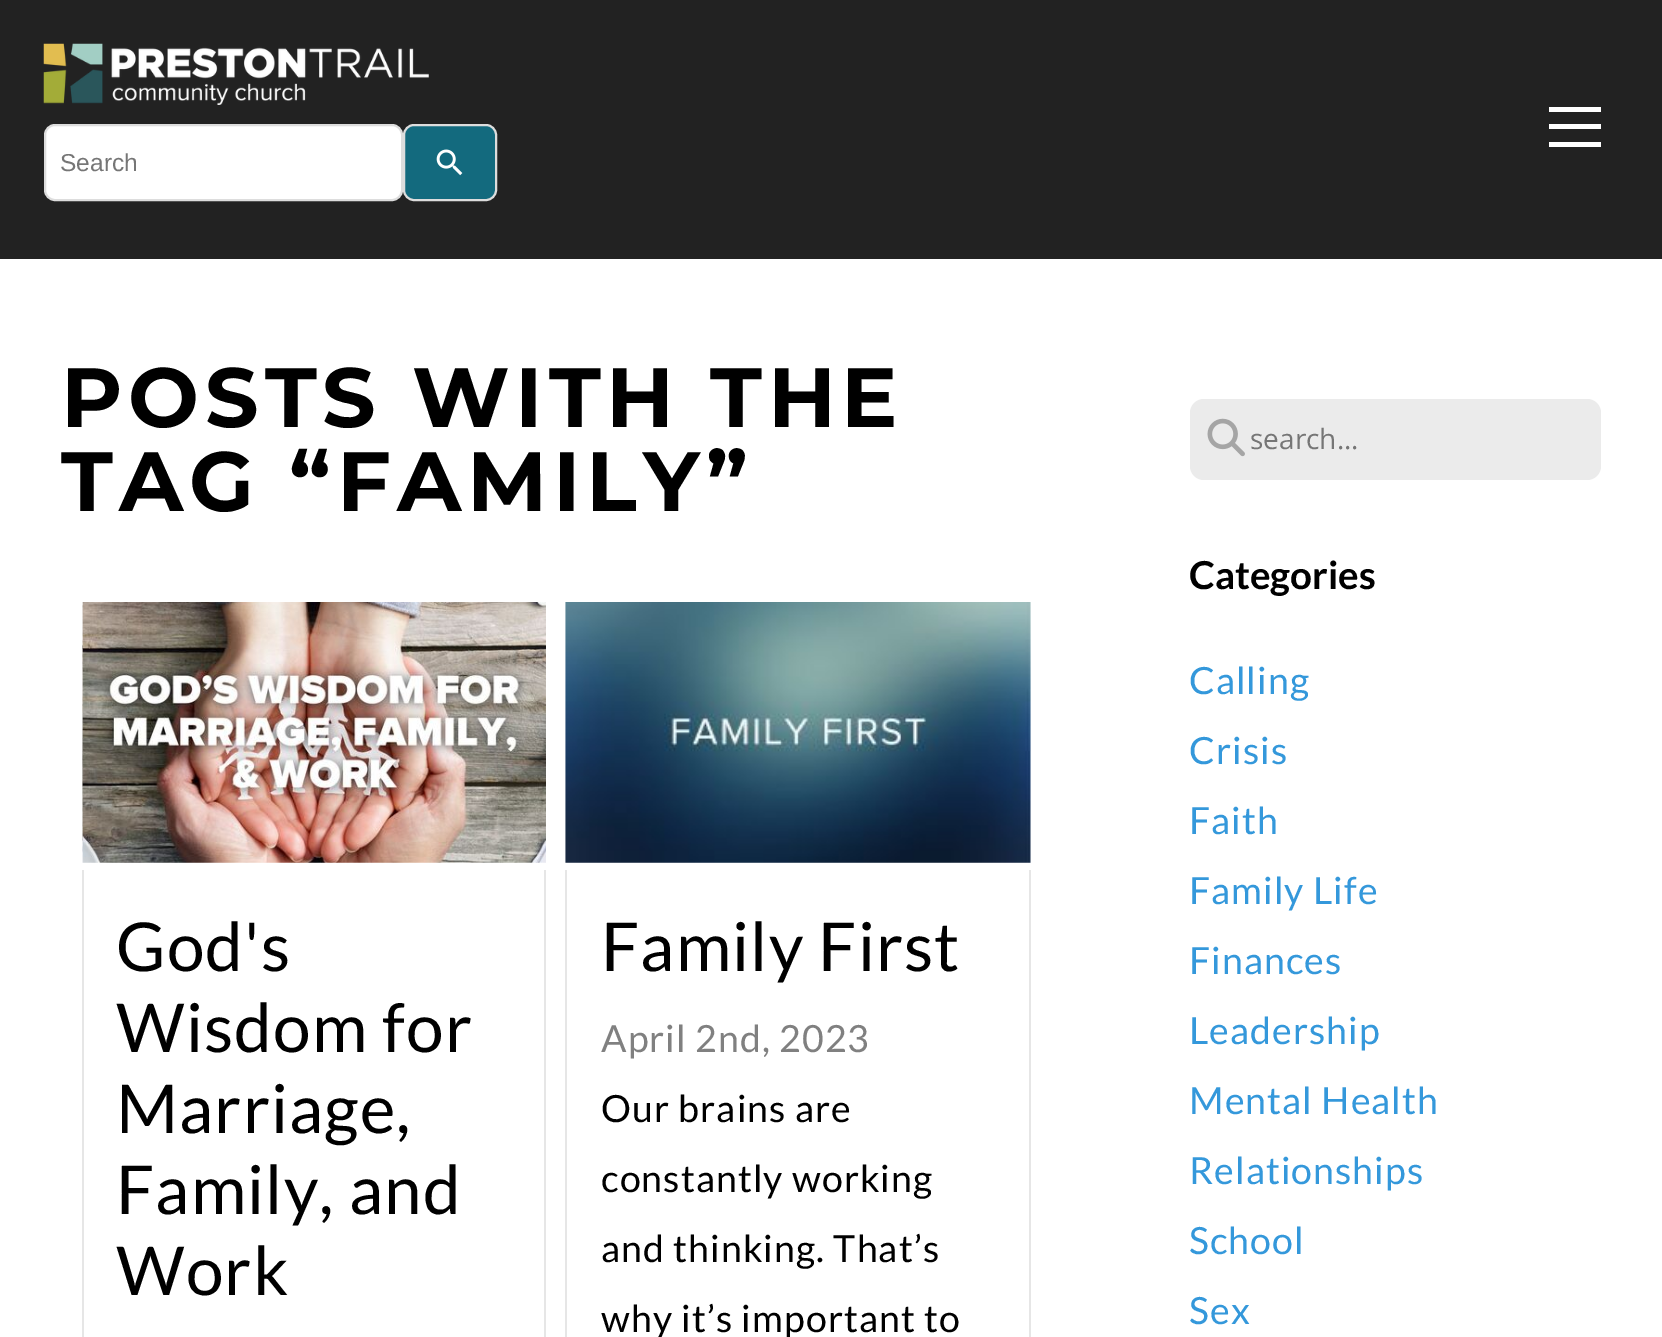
%!PS
<< /PageSize [1662 1337] >> setpagedevice
/rgb { 3 { 255 div 3 1 roll } repeat setrgbcolor } def
/font { [ exch dup neg 0 0 3 -1 roll 0 0 ] selectfont } def
/text { moveto show } def
/roundrect { 5 dict begin { /r /h /w /y /x } { exch def } forall
  x r add y moveto x w add y 2 copy h add r arct x w add y h add x 1 index r arct
  x y h add x y r arct x y 2 copy exch w add exch r arct closepath end } def
/picture { 5 dict begin { /h /w /y /x /name } { exch def } forall
  gsave x y translate w h scale
  w h 8 [w 0 0 h 0 0] name (r) file false 3 colorimage grestore end } def
0 1337 translate 1 -1 scale
4 setmiterlimit
34 34 34 rgb
0 0 1662 1337 rectfill
255 255 255 rgb
1549 107 52 5 rectfill
1549 124 52 5 rectfill
1549 142 52 5 rectfill
(img_01.rgb) 43 43 386 62 picture
45 125 357 75 10 roundrect gsave fill grestore
221 221 221 rgb
2 setlinewidth
stroke
19 106 126 rgb
404 125 92 75 10 roundrect gsave fill grestore
221 221 221 rgb
stroke
(img_02.rgb) 436 149 27 27 picture
255 255 255 rgb
0 259 1662 1078 rectfill
(img_03.rgb) 82 602 464 261 picture
230 230 230 rgb
544 870 2 467 rectfill
82 870 2 467 rectfill
(img_04.rgb) 565 602 466 261 picture
1029 870 2 467 rectfill
565 870 2 467 rectfill
235 235 235 rgb
1190 399 411 81 14 roundrect fill
(img_05.rgb) 1207 418 38 39 picture
/LiberationSans-Regular 24.5 font
118 118 118 rgb
(Search) 60 171 text
/Montserrat-Bold 84 font
0 0 0 rgb
61 427 moveto 5.9 0 (POSTS WITH THE) ashow
61 511 moveto 5.9 0 (TAG “FAMILY”) ashow
/Lato-Regular 67.5 font
116 971 moveto 1.05 0 (God's) ashow
116 1052 moveto 1.05 0 (Wisdom for) ashow
116 1133 moveto 1.05 0 (Marriage,) ashow
116 1214 moveto 1.05 0 (Family, and) ashow
116 1295 moveto 1.05 0 (Work) ashow
601 971 moveto 1.05 0 (Family First) ashow
/Lato-Regular 37.5 font
128 128 128 rgb
601 1052 moveto 1.05 0 (April 2nd, 2023) ashow
0 0 0 rgb
601 1122 moveto 1.05 0 (Our brains are) ashow
601 1192 moveto 1.05 0 (constantly working) ashow
601 1262 moveto 1.05 0 (and thinking. That’s) ashow
601 1332 moveto 1.05 0 (why it’s important to) ashow
/OpenSans-Regular 28 font
118 118 118 rgb
(search...) 1250 449 text
/Lato-Bold 38.5 font
0 0 0 rgb
(Categories) 1189 589 text
/Lato-Regular 37.5 font
52 152 219 rgb
1189 694 moveto 1.05 0 (Calling) ashow
1189 764 moveto 1.05 0 (Crisis) ashow
1189 834 moveto 1.05 0 (Faith) ashow
1189 904 moveto 1.05 0 (Family Life) ashow
1189 974 moveto 1.05 0 (Finances) ashow
1189 1044 moveto 1.05 0 (Leadership) ashow
1189 1114 moveto 1.05 0 (Mental Health) ashow
1189 1184 moveto 1.05 0 (Relationships) ashow
1189 1254 moveto 1.05 0 (School) ashow
1189 1324 moveto 1.05 0 (Sex) ashow
showpage
